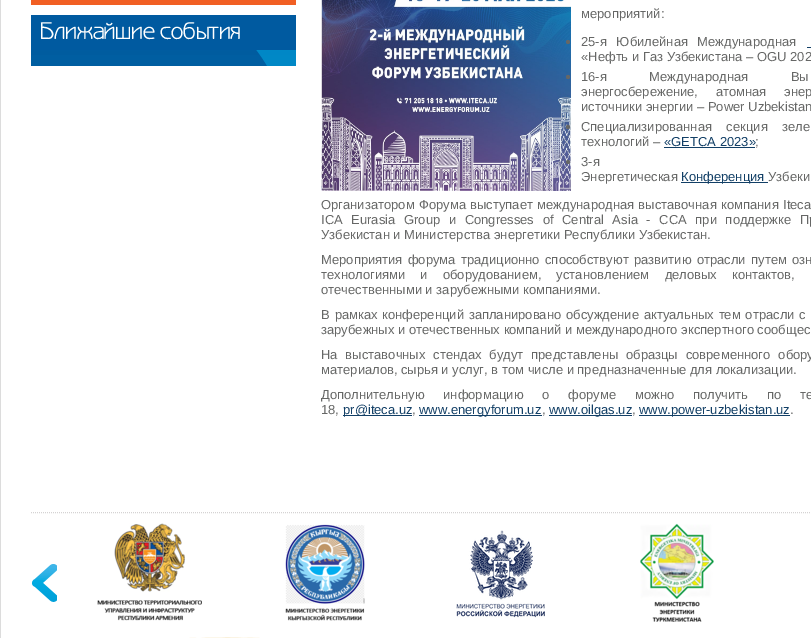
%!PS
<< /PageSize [811 638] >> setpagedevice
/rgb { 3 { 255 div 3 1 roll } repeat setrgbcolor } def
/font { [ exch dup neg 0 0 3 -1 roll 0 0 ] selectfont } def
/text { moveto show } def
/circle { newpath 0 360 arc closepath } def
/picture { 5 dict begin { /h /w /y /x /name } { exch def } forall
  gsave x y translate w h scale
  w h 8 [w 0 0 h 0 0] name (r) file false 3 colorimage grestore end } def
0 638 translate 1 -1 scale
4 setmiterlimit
255 255 255 rgb
0 0 811 638 rectfill
220 220 220 rgb
0 0 1 638 rectfill
213 211 211 rgb
[1 1] 0 setdash
31 512.5 moveto 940 0 rlineto stroke
241 95 35 rgb
31 0 265 5 rectfill
(img_01.rgb) 31 15 265 51 picture
(img_02.rgb) 321 0 250 191 picture
102 103 102 rgb
568 42 2 circle fill
18 63 102 rgb
807 47 4 1 rectfill
102 103 102 rgb
568 77 2 circle fill
568 127 2 circle fill
18 63 102 rgb
664 147 91 1 rectfill
102 103 102 rgb
568 162 2 circle fill
18 63 102 rgb
681 182 87 1 rectfill
343 415 69 1 rectfill
419 415 123 1 rectfill
549 415 83 1 rectfill
639 415 151 1 rectfill
(img_03.rgb) 189 637 71 1 picture
(img_04.rgb) 31 564 26 38 picture
(img_05.rgb) 97 523 105 98 picture
(img_06.rgb) 285 524 80 97 picture
(img_07.rgb) 456 530 89 88 picture
(img_08.rgb) 640 523 74 99 picture
/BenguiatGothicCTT-Regular 24 font
255 255 255 rgb
(Ближайшие события) 40 39 text
/LiberationSans-Regular 13 font
102 103 102 rgb
(мероприятий:) 581 18 text
581 46 moveto 6 0 32 (25-я Юбилейная Международная) widthshow
(«Нефть и Газ Узбекистана – OGU 202) 581 61 text
581 81 moveto 39 0 32 (16-я Международная Вы) widthshow
581 96 moveto 14 0 32 (энергосбережение, атомная энер) widthshow
(источники энергии – Power Uzbekistan) 581 111 text
581 131 moveto 11 0 32 (Специализированная секция зеле) widthshow
(технологий –) 581 146 text
18 63 102 rgb
(«GETCA 2023») 664 146 text
102 103 102 rgb
(;) 755 146 text
581 166 moveto 269 0 32 (3-я) widthshow
(Энергетическая) 581 181 text
18 63 102 rgb
(Конференция) 681 181 text
102 103 102 rgb
(Узбеки) 768 181 text
321 209 moveto 0.75 0 32 (Организатором Форума выступает международная выставочная компания Iteca) widthshow
321 224 moveto 5 0 32 (ICA Eurasia Group и Congresses of Central Asia - CCA при поддержке Пр) widthshow
(Узбекистан и Министерства энергетики Республики Узбекистан.) 321 239 text
321 264 moveto 1.75 0 32 (Мероприятия форума традиционно способствуют развитию отрасли путем озн) widthshow
321 279 moveto 11.5 0 32 (технологиями и оборудованием, установлением деловых контактов,) widthshow
(отечественными и зарубежными компаниями.) 321 294 text
321 319 moveto 1.25 0 32 (В рамках конференций запланировано обсуждение актуальных тем отрасли с) widthshow
(зарубежных и отечественных компаний и международного экспертного сообщес) 321 334 text
321 359 moveto 4.25 0 32 (На выставочных стендах будут представлены образцы современного обору) widthshow
(материалов, сырья и услуг, в том числе и предназначенные для локализации.) 321 374 text
321 399 moveto 15.25 0 32 (Дополнительную информацию о форуме можно получить по те) widthshow
(18,) 321 414 text
18 63 102 rgb
(pr@iteca.uz) 343 414 text
102 103 102 rgb
(,) 412 414 text
18 63 102 rgb
(www.energyforum.uz) 419 414 text
102 103 102 rgb
(,) 542 414 text
18 63 102 rgb
(www.oilgas.uz) 549 414 text
102 103 102 rgb
(,) 632 414 text
18 63 102 rgb
(www.power-uzbekistan.uz) 639 414 text
102 103 102 rgb
(.) 790 414 text
showpage
